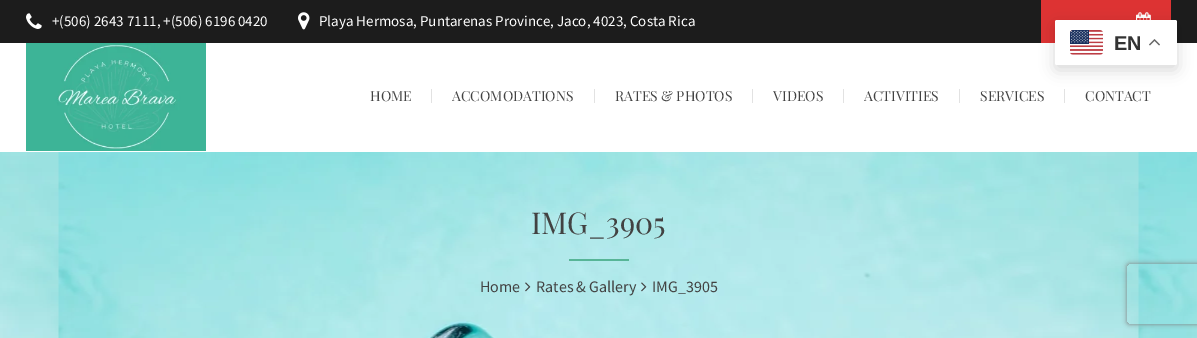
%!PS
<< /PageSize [1197 338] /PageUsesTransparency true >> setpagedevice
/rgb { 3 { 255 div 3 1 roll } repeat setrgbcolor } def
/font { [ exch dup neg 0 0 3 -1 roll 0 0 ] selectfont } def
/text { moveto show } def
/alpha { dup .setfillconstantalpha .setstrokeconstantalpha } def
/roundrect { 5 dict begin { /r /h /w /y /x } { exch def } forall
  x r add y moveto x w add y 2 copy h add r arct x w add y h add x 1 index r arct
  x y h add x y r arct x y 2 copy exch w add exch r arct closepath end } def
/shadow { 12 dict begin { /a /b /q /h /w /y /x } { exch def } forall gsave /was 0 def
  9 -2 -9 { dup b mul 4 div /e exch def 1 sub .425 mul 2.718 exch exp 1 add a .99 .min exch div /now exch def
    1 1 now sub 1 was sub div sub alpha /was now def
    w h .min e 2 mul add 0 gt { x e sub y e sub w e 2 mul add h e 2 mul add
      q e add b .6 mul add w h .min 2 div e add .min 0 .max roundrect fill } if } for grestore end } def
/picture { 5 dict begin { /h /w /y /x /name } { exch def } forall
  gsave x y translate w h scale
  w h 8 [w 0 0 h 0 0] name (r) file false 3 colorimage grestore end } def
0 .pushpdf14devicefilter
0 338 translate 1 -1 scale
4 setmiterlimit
255 255 255 rgb
0 0 1197 338 rectfill
28 28 28 rgb
0 0 1197 43 rectfill
(img_01.rgb) 26 13 16 16 picture
(img_02.rgb) 298 12 12 18 picture
221 51 51 rgb
1041 0 130 43 rectfill
(img_03.rgb) 1136 12 15 8 picture
(img_04.rgb) 26 43 180 108 picture
226 226 226 rgb
431 89 1 14 rectfill
594 89 1 14 rectfill
752 89 1 14 rectfill
843 89 1 14 rectfill
959 89 1 14 rectfill
1064 89 1 14 rectfill
(img_05.rgb) 0 152 1197 186 picture
87 181 151 rgb
569 259 60 2 rectfill
(img_06.rgb) 525 282 6 10 picture
(img_07.rgb) 641 282 6 10 picture
0 0 0 rgb
1055 25 122 45 2 7.5 0.15 shadow
255 255 255 rgb
1055 20 122 45 2 roundrect fill
(img_08.rgb) 1070 30 33 25 picture
(img_09.rgb) 1149 39 11 7 picture
gsave
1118 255 moveto 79 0 rlineto 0 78 rlineto -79 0 rlineto closepath 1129 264 moveto 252 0 rlineto 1 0 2 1 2 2 rcurveto 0 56 rlineto 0 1 -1 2 -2 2 rcurveto -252 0 rlineto -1 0 -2 -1 -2 -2 rcurveto 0 -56 rlineto 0 -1 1 -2 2 -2 rcurveto closepath eoclip newpath
128 128 128 rgb
1127 264 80 60 2 2.5 1 shadow
grestore
/SourceSansPro-Regular 15 font
(+\(506\) 2643 7111, +\(506\) 6196 0420) 52 26 text
(Playa Hermosa, Puntarenas Province, Jaco, 4023, Costa Rica) 319 26 text
/PlayfairDisplay-Regular 14 font
66 66 66 rgb
(HOME) 370 101 text
(ACCOMODATIONS) 452 101 text
(RATES & PHOTOS) 615 101 text
(VIDEOS) 773 101 text
(ACTIVITIES) 864 101 text
(SERVICES) 980 101 text
(CONTACT) 1085 101 text
/PlayfairDisplay-Regular 30 font
(IMG_3905) 531 234 text
/SourceSansPro-Regular 16 font
(Home) 480 292 text
(Rates & Gallery) 536 292 text
(IMG_3905) 652 292 text
/LiberationSans-Bold 20 font
51 51 51 rgb
(EN) 1114 50 text
.poppdf14devicefilter showpage
